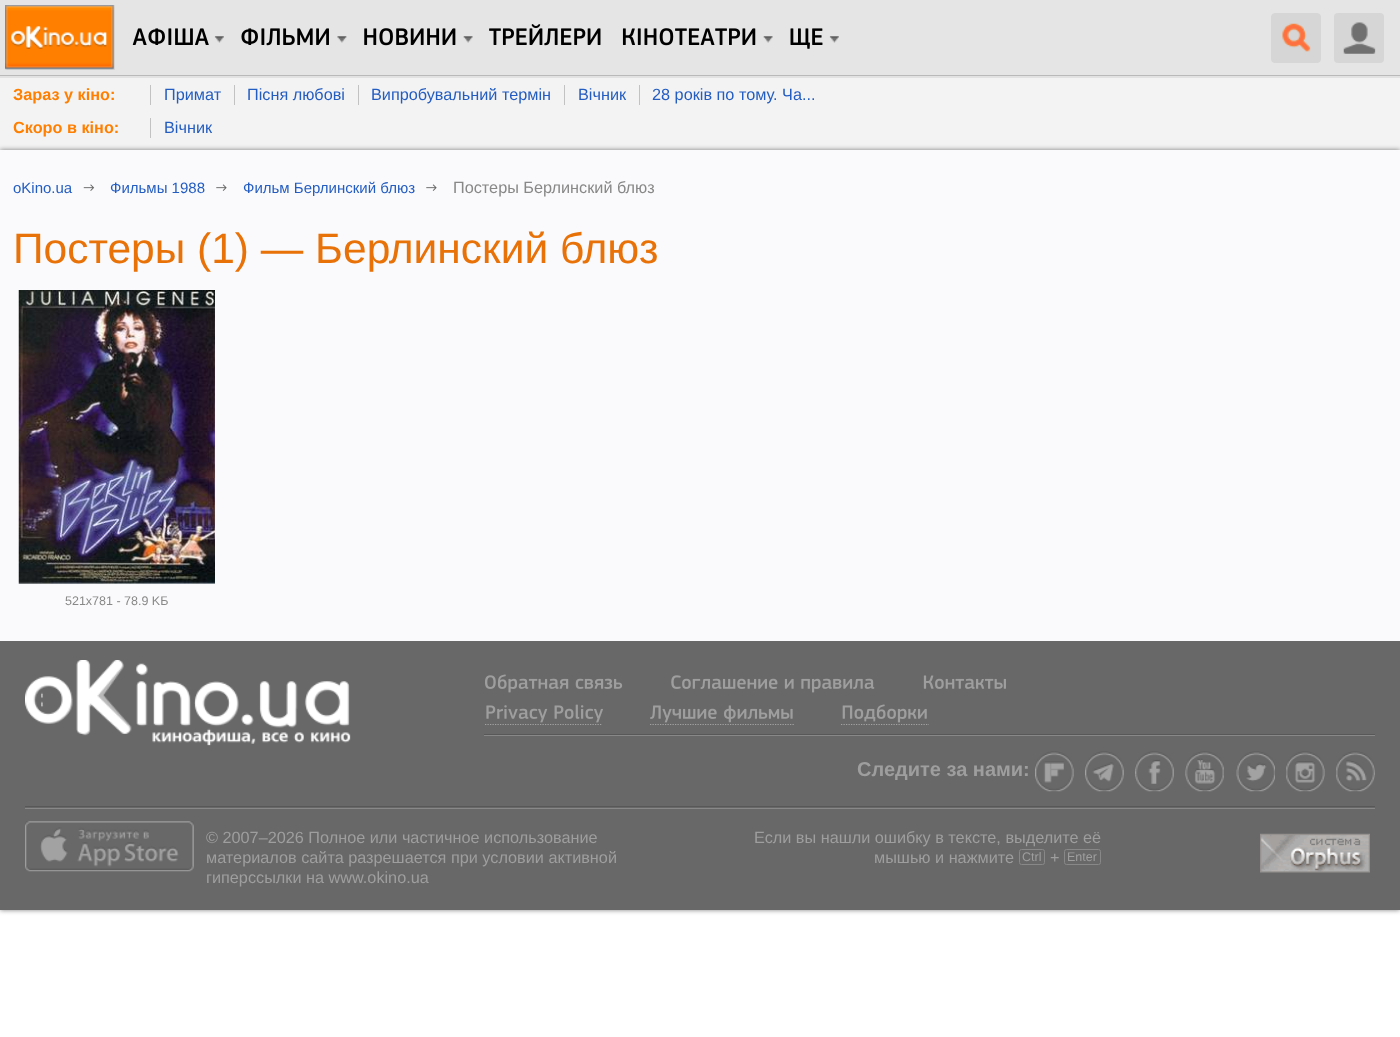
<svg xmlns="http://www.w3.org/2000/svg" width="1400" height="1037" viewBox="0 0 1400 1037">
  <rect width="100%" height="100%" fill="#fff"/>
  <path d="M0 76h1400v2H0z" fill="#e2e2e2"/>
  <path d="M0 75h1400v1H0z" fill="#b9b9b9"/>
  <path d="M0 0h1400v75H0z" fill="#e5e5e5"/>
  <image x="5" y="5" width="110" height="65" href="img/1.png"/>
  <image x="214" y="36" width="10" height="7" href="img/2.png"/>
  <image x="132" y="28" width="77" height="17" href="img/3.png"/>
  <image x="337" y="36" width="10" height="7" href="img/4.png"/>
  <image x="241" y="28" width="88" height="18" href="img/5.png"/>
  <image x="463" y="36" width="10" height="7" href="img/6.png"/>
  <image x="364" y="28" width="92" height="18" href="img/7.png"/>
  <image x="489" y="24" width="112" height="22" href="img/8.png"/>
  <image x="763" y="36" width="10" height="7" href="img/6.png"/>
  <image x="622" y="28" width="134" height="18" href="img/9.png"/>
  <image x="829" y="36" width="10" height="7" href="img/10.png"/>
  <image x="790" y="28" width="33" height="21" href="img/11.png"/>
  <rect x="1271.5" y="13.5" width="49" height="49" rx="3.5" fill="#d6d6d7" stroke="#d6d6d7"/>
  <image x="1282" y="23" width="29" height="29" href="img/12.png"/>
  <rect x="1334" y="13" width="50" height="50" rx="4" fill="#d6d6d7"/>
  <image x="1343" y="22" width="33" height="32" href="img/13.png"/>
  <path d="M0 78h1400v72H0z" fill="#f3f3f3"/>
  <path d="M150 85h1v20H150z" fill="#c2c2c2"/>
  <path d="M234 85h1v20H234z" fill="#c2c2c2"/>
  <path d="M358 85h1v20H358z" fill="#c2c2c2"/>
  <path d="M564 85h1v20H564z" fill="#c2c2c2"/>
  <path d="M639 85h1v20H639z" fill="#c2c2c2"/>
  <path d="M150 118h1v20H150z" fill="#c2c2c2"/>
  <path d="M0 150h1400v760H0z" fill="#00000080" filter="blur(2.5px)"/>
  <path d="M0 150h1400v491H0z" fill="#fafafc"/>
  <image x="83" y="184" width="12" height="7" href="img/14.png"/>
  <image x="216" y="184" width="11" height="7" href="img/15.png"/>
  <image x="426" y="184" width="11" height="7" href="img/15.png"/>
  <image x="18" y="290" width="197" height="294" href="img/16.png"/>
  <path d="M0 641h1400v269H0z" fill="#686868"/>
  <image x="25" y="660" width="326" height="86" href="img/17.png"/>
  <image x="485" y="674" width="138" height="19" href="img/18.png"/>
  <image x="671" y="675" width="204" height="18" href="img/19.png"/>
  <image x="923" y="675" width="83" height="14" href="img/20.png"/>
  <image x="486" y="704" width="117" height="19" href="img/21.png"/>
  <path d="M485 724.5H602.5" fill="none" stroke="#a2a2a2" stroke-width="1.2" stroke-dasharray="1.25 1.25"/>
  <image x="650" y="705" width="143" height="18" href="img/22.png"/>
  <path d="M650 724.5H794" fill="none" stroke="#a2a2a2" stroke-width="1.2" stroke-dasharray="1.25 1.25"/>
  <image x="842" y="704" width="85" height="19" href="img/23.png"/>
  <path d="M841 724.5H929" fill="none" stroke="#a2a2a2" stroke-width="1.2" stroke-dasharray="1.25 1.25"/>
  <path d="M484 734h891v1H484z" fill="#585858"/>
  <path d="M484 735h891v1H484z" fill="#888"/>
  <image x="1035" y="751" width="39" height="41" href="img/24.png"/>
  <image x="1085" y="751" width="39" height="41" href="img/25.png"/>
  <image x="1135" y="751" width="39" height="41" href="img/26.png"/>
  <image x="1185" y="751" width="39" height="41" href="img/27.png"/>
  <image x="1236" y="751" width="39" height="41" href="img/28.png"/>
  <image x="1286" y="751" width="39" height="41" href="img/29.png"/>
  <image x="1336" y="751" width="39" height="41" href="img/30.png"/>
  <path d="M25 806h1350v1H25z" fill="#585858"/>
  <path d="M25 808h1350v1H25z" fill="#888"/>
  <image x="25" y="821" width="169" height="51" href="img/31.png"/>
  <rect x="1019.5" y="849.5" width="25" height="15" rx="2" fill="none" stroke="#888"/>
  <rect x="1064.5" y="849.5" width="36" height="15" rx="2" fill="none" stroke="#888"/>
  <image x="1260" y="833" width="110" height="40" href="img/32.png"/>
  <text x="13" y="100" font-family="Liberation Sans" font-size="16.25" font-weight="bold" fill="#ff7f00">Зараз у кіно:</text>
  <g font-family="Liberation Sans" font-size="16.25" fill="#245dc1">
    <text x="164" y="100">Примат</text>
    <text x="247" y="100">Пісня любові</text>
    <text x="371" y="100">Випробувальний термін</text>
    <text x="578" y="100">Вічник</text>
    <text x="652" y="100">28 років по тому. Ча...</text>
  </g>
  <text x="13" y="133" font-family="Liberation Sans" font-size="16.25" font-weight="bold" fill="#ff7f00">Скоро в кіно:</text>
  <text x="164" y="133" font-family="Liberation Sans" font-size="16.25" fill="#245dc1">Вічник</text>
  <g font-family="Liberation Sans" font-size="15" fill="#245dc1">
    <text x="13" y="193">oKino.ua</text>
    <text x="110" y="193">Фильмы 1988</text>
    <text x="243" y="193">Фильм Берлинский блюз</text>
  </g>
  <text x="453" y="193" font-family="Liberation Sans" font-size="16.25" fill="#888">Постеры Берлинский блюз</text>
  <text x="13" y="263" font-family="Liberation Sans" font-size="42.5" fill="#e87208">Постеры (1) — Берлинский блюз</text>
  <text x="65" y="605" font-family="Liberation Sans" font-size="12.5" fill="#888">521x781 - 78.9 KБ</text>
  <text x="857" y="776" font-family="Liberation Sans" font-size="20" font-weight="bold" fill="#9e9e9e">Следите за нами:</text>
  <g font-family="Liberation Sans" font-size="16.25" fill="#9e9e9e">
    <text x="206" y="843">© 2007–2026 Полное или частичное использование</text>
    <text x="206" y="863">материалов сайта разрешается при условии активной</text>
    <text x="206" y="883">гиперссылки на www.okino.ua</text>
    <text x="754" y="843">Если вы нашли ошибку в тексте, выделите её</text>
    <text x="874" y="863">мышью и нажмите</text>
  </g>
  <text x="1022" y="861" font-family="Liberation Sans" font-size="12.5" fill="#9e9e9e">Ctrl</text>
  <text x="1050" y="863" font-family="Liberation Sans" font-size="16.25" fill="#9e9e9e">+</text>
  <text x="1067" y="861" font-family="Liberation Sans" font-size="12.5" fill="#9e9e9e">Enter</text>
</svg>
